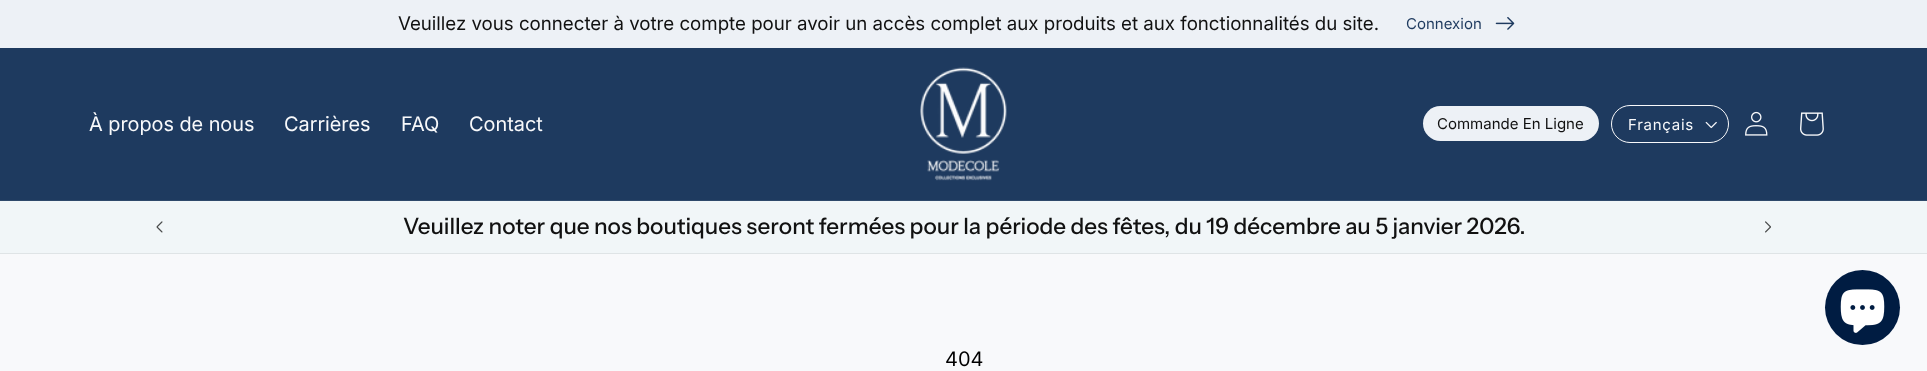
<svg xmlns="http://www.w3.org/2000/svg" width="1927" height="371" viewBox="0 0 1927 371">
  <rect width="100%" height="100%" fill="#f8f9fb"/>
  <path d="M0 0h1927v48H0z" fill="#edf1f6"/>
  <image x="1495" y="17" width="20" height="13" href="img/1.png"/>
  <path d="M0 48h1927v152H0z" fill="#1e3a5f"/>
  <path d="M0 200h1927v1H0z" fill="#2f496b"/>
  <image x="920" y="67" width="87" height="114" href="img/2.png"/>
  <rect x="1423" y="106" width="176" height="35" rx="17.5" fill="#edf1f6"/>
  <rect x="1611.5" y="105.5" width="117" height="37" rx="18.5" fill="none" stroke="#f8f9fb"/>
  <image x="1705" y="121" width="12" height="8" href="img/3.png"/>
  <image x="1745" y="111" width="23" height="25" href="img/4.png"/>
  <image x="1800" y="112" width="24" height="24" href="img/5.png"/>
  <path d="M0 201h1927v52H0z" fill="#f1f6f8"/>
  <path d="M0 253h1927v1H0z" fill="#dfe4e6"/>
  <image x="156" y="221" width="7" height="12" href="img/6.png"/>
  <image x="1765" y="221" width="6" height="12" href="img/7.png"/>
  <circle cx="1862.5" cy="307.5" r="37.5" fill="#001c42"/>
  <image x="1840" y="289" width="45" height="44" href="img/8.png"/>
  <text x="398" y="30" font-family="'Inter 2'" font-size="18.75" fill="#111">Veuillez vous connecter à votre compte pour avoir un accès complet aux produits et aux fonctionnalités du site.</text>
  <text x="1406" y="29" font-family="Inter" font-size="15" fill="#1e3a5f">Connexion</text>
  <g font-family="'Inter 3'" font-size="20" fill="#f8f9fb">
    <text x="89" y="131">À propos de nous</text>
    <text x="284" y="131">Carrières</text>
    <text x="401" y="131">FAQ</text>
    <text x="469" y="131">Contact</text>
  </g>
  <text x="1437" y="129" font-family="Inter" font-size="15" fill="#111">Commande En Ligne</text>
  <text x="1628" y="130" font-family="Inter" font-size="15" letter-spacing="0.75" fill="#f8f9fb">Français</text>
  <text x="403" y="234" font-family="Instrument Sans" font-size="22.5" font-weight="500" fill="#111">Veuillez noter que nos boutiques seront fermées pour la période des fêtes, du 19 décembre au 5 janvier 2026.</text>
  <text x="945" y="366" font-family="Inter" font-size="20" fill="#000">404</text>
</svg>
